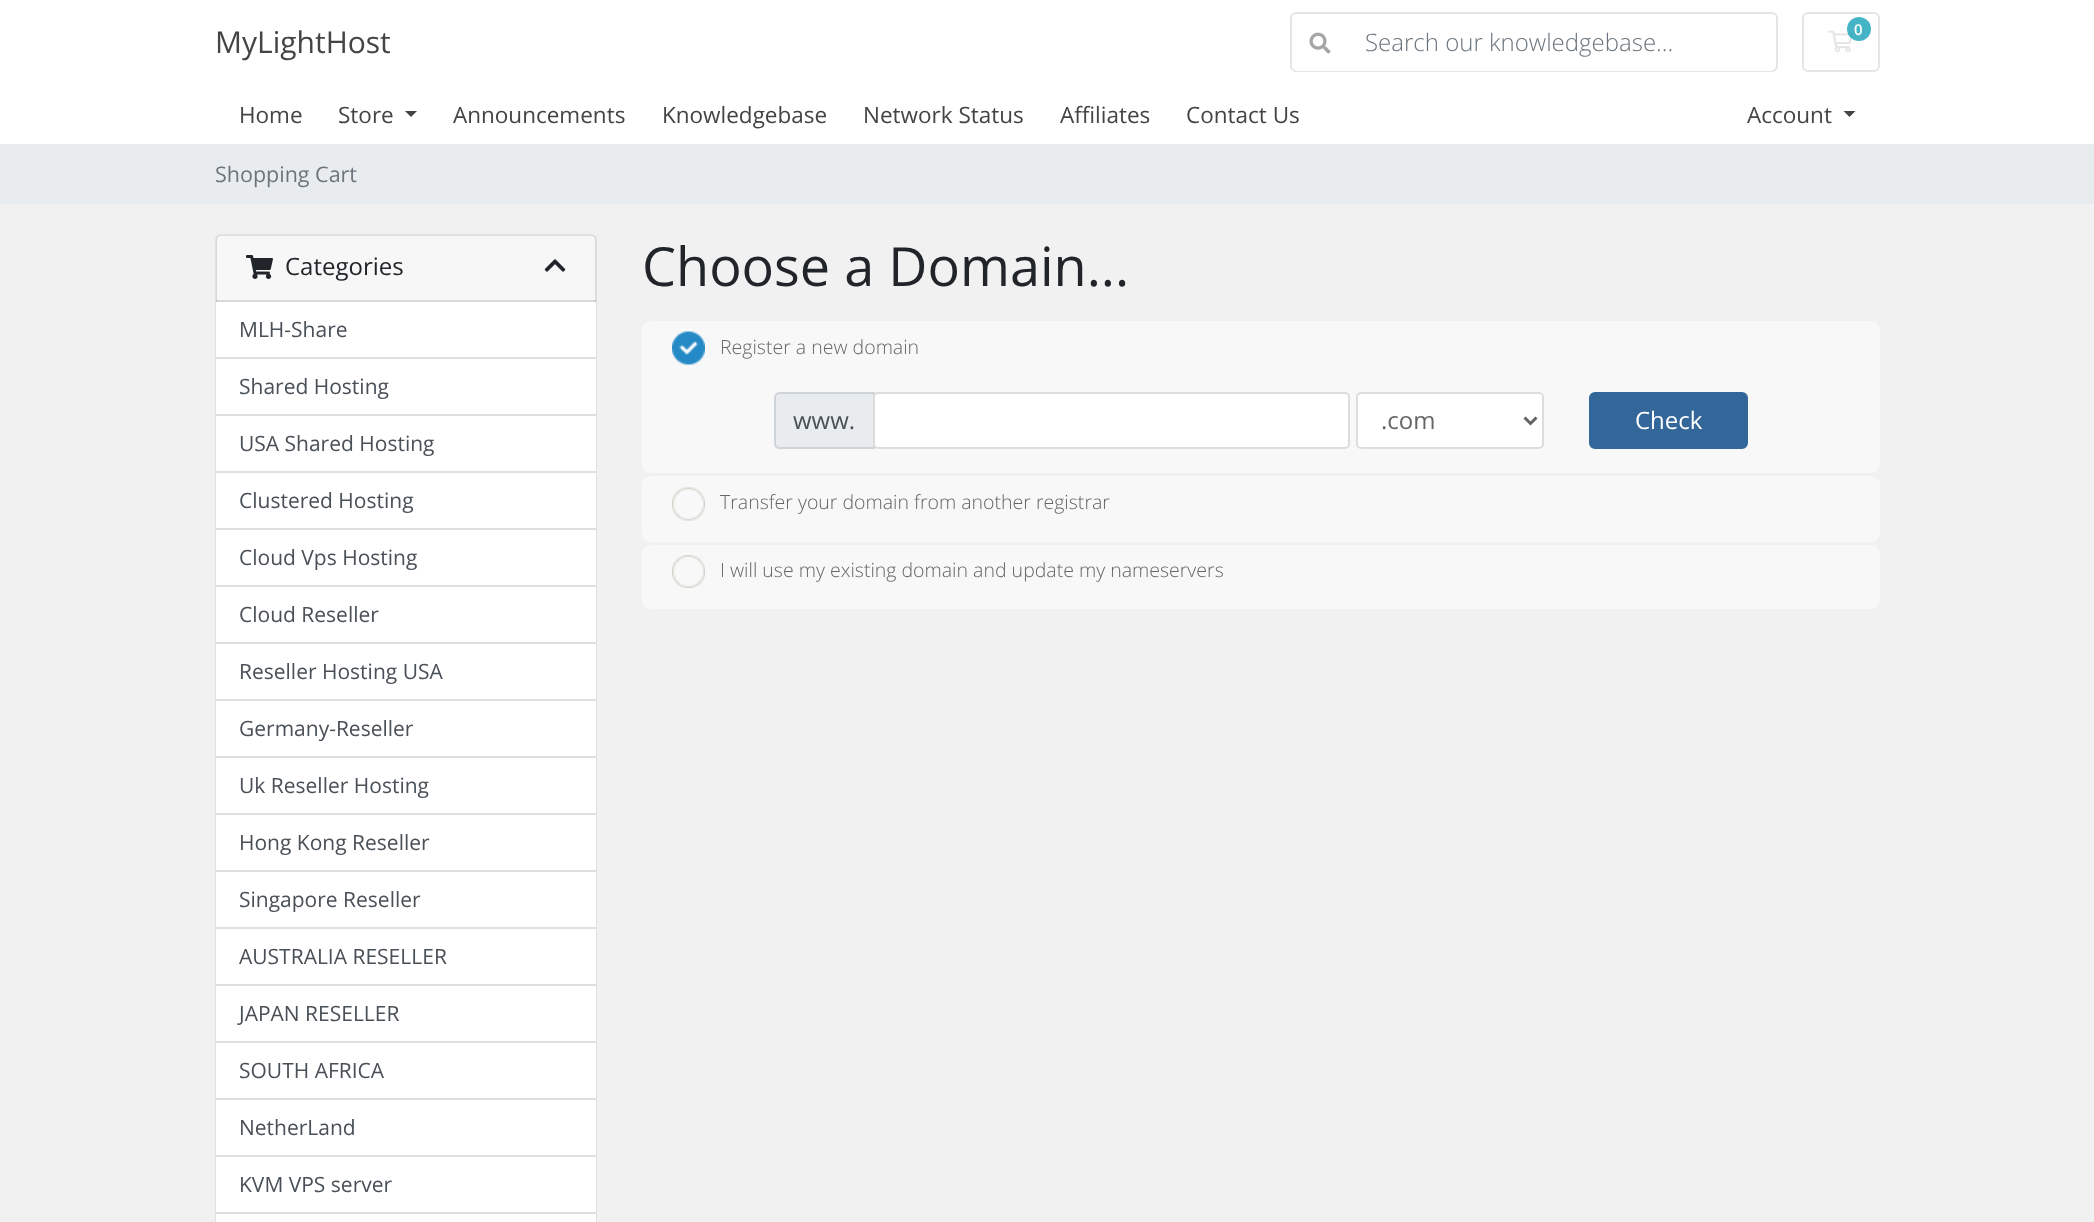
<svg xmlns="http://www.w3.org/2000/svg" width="2094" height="1222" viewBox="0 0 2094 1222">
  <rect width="100%" height="100%" fill="#f1f1f1"/>
  <path d="M0 0h2094v144H0z" fill="#fff"/>
  <rect x="1291" y="13" width="486" height="58" rx="5" fill="none" stroke="#e5e5e5" stroke-width="2"/>
  <path d="M1347 14H1770C1773.5 14 1776 16.5 1776 20V65C1776 68.5 1773.5 71 1770 71H1347Z" fill="#fff"/>
  <path d="M1298 14H1349V71H1298C1294.5 71 1292 68.5 1292 65V20C1292 16.5 1294.5 14 1298 14Z" fill="#fff"/>
  <image x="1309" y="32" width="22" height="22" href="img/1.png"/>
  <rect x="1803" y="13" width="76" height="58" rx="5" fill="none" stroke="#e5e5e5" stroke-width="2"/>
  <image x="1828" y="30" width="25" height="22" href="img/2.png"/>
  <circle cx="1859" cy="29" r="12" fill="#17a2b8cc"/>
  <path d="M405 111H417L411 117Z" fill="#444"/>
  <path d="M1843.5 111H1855.5L1849.5 117Z" fill="#444"/>
  <path d="M0 144h2094v60H0z" fill="#e9ecef"/>
  <rect x="215" y="234" width="382" height="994" rx="6" fill="#fff"/>
  <rect x="216" y="235" width="380" height="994" rx="5" fill="none" stroke="#0000001f" stroke-width="2"/>
  <path d="M216 236h380v66H216z" fill="#00000008"/>
  <path d="M216 300h380v2H216z" fill="#0000001f"/>
  <image x="246" y="255" width="27" height="24" href="img/3.png"/>
  <image x="544" y="259" width="22" height="13" href="img/4.png"/>
  <path d="M216 302h380v55H216z" fill="#fff"/>
  <path d="M216 357h380v2H216z" fill="#dfdfdf"/>
  <path d="M216 359h380v55H216z" fill="#fff"/>
  <path d="M216 414h380v2H216z" fill="#dfdfdf"/>
  <path d="M216 416h380v55H216z" fill="#fff"/>
  <path d="M216 471h380v2H216z" fill="#dfdfdf"/>
  <path d="M216 473h380v55H216z" fill="#fff"/>
  <path d="M216 528h380v2H216z" fill="#dfdfdf"/>
  <path d="M216 530h380v55H216z" fill="#fff"/>
  <path d="M216 585h380v2H216z" fill="#dfdfdf"/>
  <path d="M216 587h380v55H216z" fill="#fff"/>
  <path d="M216 642h380v2H216z" fill="#dfdfdf"/>
  <path d="M216 644h380v55H216z" fill="#fff"/>
  <path d="M216 699h380v2H216z" fill="#dfdfdf"/>
  <path d="M216 701h380v55H216z" fill="#fff"/>
  <path d="M216 756h380v2H216z" fill="#dfdfdf"/>
  <path d="M216 758h380v55H216z" fill="#fff"/>
  <path d="M216 813h380v2H216z" fill="#dfdfdf"/>
  <path d="M216 815h380v55H216z" fill="#fff"/>
  <path d="M216 870h380v2H216z" fill="#dfdfdf"/>
  <path d="M216 872h380v55H216z" fill="#fff"/>
  <path d="M216 927h380v2H216z" fill="#dfdfdf"/>
  <path d="M216 929h380v55H216z" fill="#fff"/>
  <path d="M216 984h380v2H216z" fill="#dfdfdf"/>
  <path d="M216 986h380v55H216z" fill="#fff"/>
  <path d="M216 1041h380v2H216z" fill="#dfdfdf"/>
  <path d="M216 1043h380v55H216z" fill="#fff"/>
  <path d="M216 1098h380v2H216z" fill="#dfdfdf"/>
  <path d="M216 1100h380v55H216z" fill="#fff"/>
  <path d="M216 1155h380v2H216z" fill="#dfdfdf"/>
  <path d="M216 1157h380v55H216z" fill="#fff"/>
  <path d="M216 1212h380v2H216z" fill="#dfdfdf"/>
  <path d="M216 1214h380v8H216z" fill="#fff"/>
  <rect x="642" y="321" width="1238" height="152" rx="9" fill="#f8f8f8"/>
  <image x="672" y="331" width="33" height="34" href="img/5.png"/>
  <path d="M780 393H874V448H780C777 448 775 446 775 443V398C775 395 777 393 780 393Z" fill="#e9ecef" stroke="#ced4da" stroke-width="2"/>
  <rect x="874" y="393" width="475" height="55" rx="4" fill="#fff" stroke="#ddd" stroke-width="2"/>
  <rect x="1357" y="393" width="186" height="55" rx="4" fill="#fff" stroke="#ddd" stroke-width="2"/>
  <path d="M1524.5 417.5L1530.5 423.5L1536.5 417.5" fill="none" stroke="#626262" stroke-width="3"/>
  <rect x="1590" y="393" width="157" height="55" rx="5" fill="#369" stroke="#369" stroke-width="2"/>
  <rect x="642" y="476" width="1238" height="66" rx="9" fill="#f8f8f8"/>
  <image x="672" y="487" width="33" height="34" href="img/6.png"/>
  <rect x="642" y="545" width="1238" height="64" rx="9" fill="#f8f8f8"/>
  <image x="672" y="555" width="33" height="33" href="img/7.png"/>
  <text x="215" y="53" font-family="Open Sans" font-size="30" fill="#444">MyLightHost</text>
  <text x="1365" y="51" font-family="Open Sans" font-size="24" font-weight="300" fill="#6c757d">Search our knowledgebase...</text>
  <text x="1854" y="35" font-family="Open Sans" font-size="15" font-weight="600" fill="#fff">0</text>
  <g font-family="Open Sans" font-size="22.5" fill="#444">
    <text x="239" y="123">Home</text>
    <text x="338" y="123">Store</text>
    <text x="453" y="123">Announcements</text>
    <text x="662" y="123">Knowledgebase</text>
    <text x="863" y="123">Network Status</text>
    <text x="1060" y="123">Affiliates</text>
    <text x="1186" y="123">Contact Us</text>
    <text x="1747" y="123">Account</text>
  </g>
  <text x="215" y="182" font-family="Open Sans" font-size="21.5" fill="#6c757d">Shopping Cart</text>
  <text x="285" y="275" font-family="Open Sans" font-size="24" fill="#212529">Categories</text>
  <g font-family="Open Sans" font-size="21" fill="#495057">
    <text x="239" y="337">MLH-Share</text>
    <text x="239" y="394">Shared Hosting</text>
    <text x="239" y="451">USA Shared Hosting</text>
    <text x="239" y="508">Clustered Hosting</text>
    <text x="239" y="565">Cloud Vps Hosting</text>
    <text x="239" y="622">Cloud Reseller</text>
    <text x="239" y="679">Reseller Hosting USA</text>
    <text x="239" y="736">Germany-Reseller</text>
    <text x="239" y="793">Uk Reseller Hosting</text>
    <text x="239" y="850">Hong Kong Reseller</text>
    <text x="239" y="907">Singapore Reseller</text>
    <text x="239" y="964">AUSTRALIA RESELLER</text>
    <text x="239" y="1021">JAPAN RESELLER</text>
    <text x="239" y="1078">SOUTH AFRICA</text>
    <text x="239" y="1135">NetherLand</text>
    <text x="239" y="1192">KVM VPS server</text>
  </g>
  <text x="642" y="286" font-family="Open Sans" font-size="54" fill="#212529">Choose a Domain...</text>
  <text x="720" y="354" font-family="Open Sans" font-size="19.5" font-weight="300" fill="#666">Register a new domain</text>
  <text x="793" y="429" font-family="Open Sans" font-size="24" fill="#495057">www.</text>
  <text x="1381" y="429" font-family="Open Sans" font-size="24" fill="#666">.com</text>
  <text x="1635" y="429" font-family="Open Sans" font-size="24" fill="#fff">Check</text>
  <g font-family="Open Sans" font-size="19.5" font-weight="300" fill="#666">
    <text x="720" y="509">Transfer your domain from another registrar</text>
    <text x="720" y="577">I will use my existing domain and update my nameservers</text>
  </g>
</svg>
